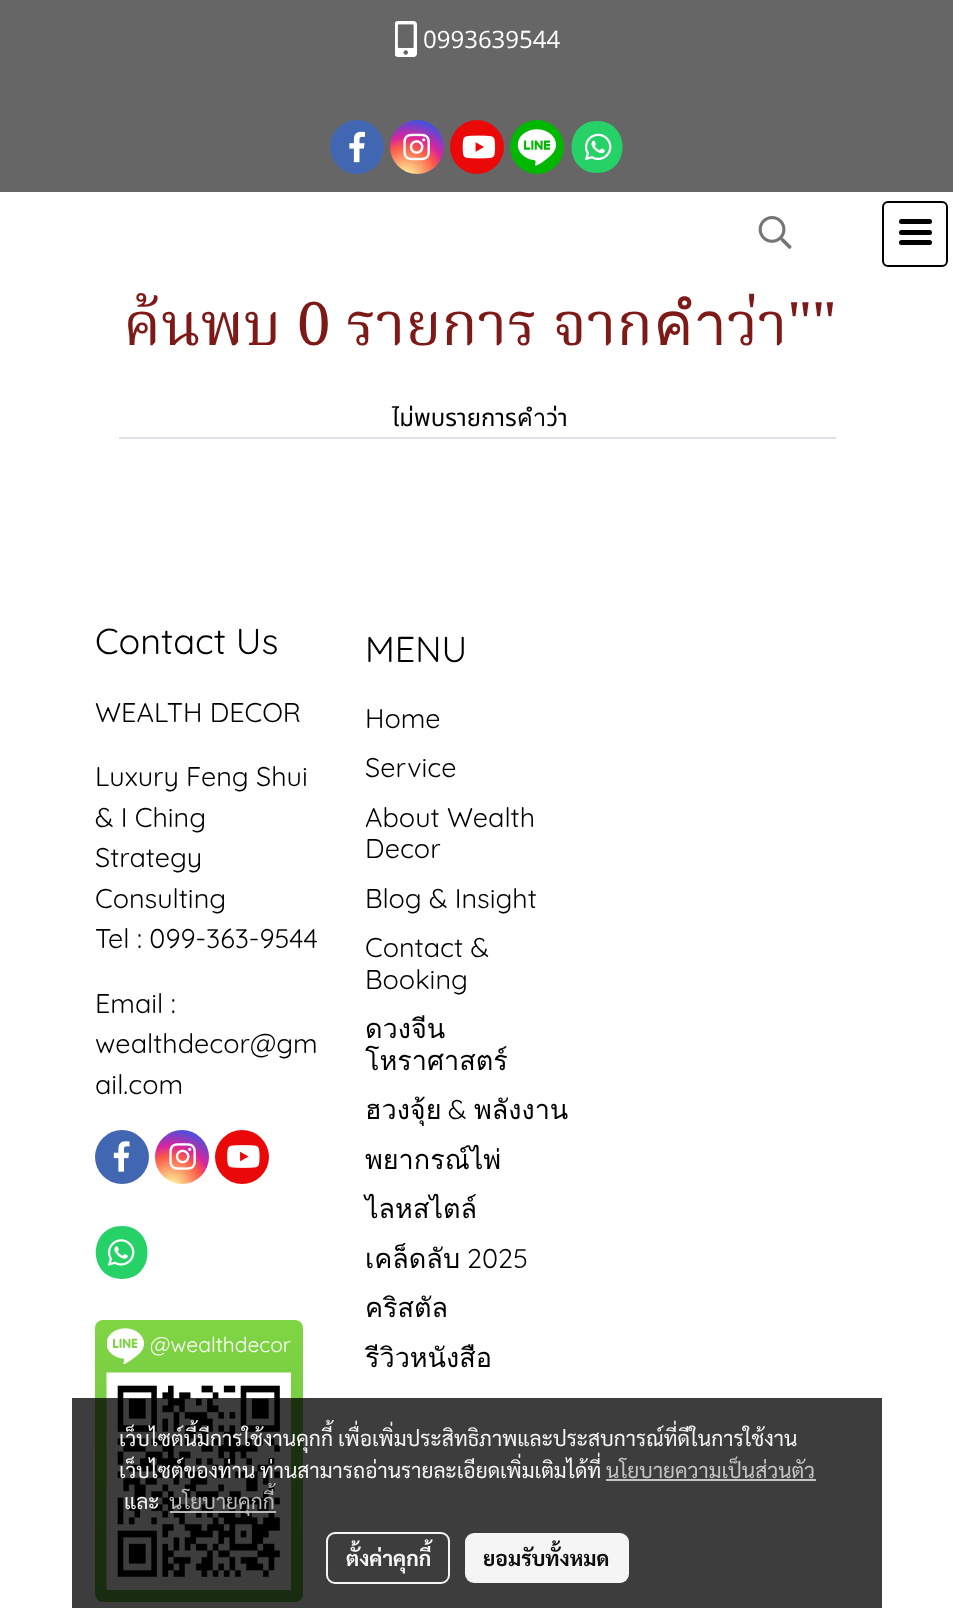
<svg xmlns="http://www.w3.org/2000/svg" width="953" height="1608" viewBox="0 0 953 1608">
  <defs>
    <radialGradient id="g1" gradientUnits="userSpaceOnUse" cx="406" cy="178" r="69"><stop offset="0" stop-color="#fdf497"/><stop offset="0.05" stop-color="#fdf497"/><stop offset="0.45" stop-color="#fd5949"/><stop offset="0.6" stop-color="#d6249f"/><stop offset="0.9" stop-color="#285aeb"/></radialGradient>
    <radialGradient id="g2" gradientUnits="userSpaceOnUse" cx="171" cy="1187" r="69"><stop offset="0" stop-color="#fdf497"/><stop offset="0.05" stop-color="#fdf497"/><stop offset="0.45" stop-color="#fd5949"/><stop offset="0.6" stop-color="#d6249f"/><stop offset="0.9" stop-color="#285aeb"/></radialGradient>
    <linearGradient id="g3" gradientUnits="userSpaceOnUse" x1="199" y1="1320" x2="199" y2="1602"><stop offset="0" stop-color="#80d544"/><stop offset="1" stop-color="#65bc3e"/></linearGradient>
  </defs>
  <rect width="100%" height="100%" fill="#fff"/>
  <path d="M0 0h953v192H0z" fill="#666"/>
  <image x="395" y="21" width="22" height="36" href="img/1.png"/>
  <circle cx="357" cy="147" r="27" fill="#4267b2"/>
  <image x="349" y="131" width="16" height="32" href="img/2.png"/>
  <circle cx="417" cy="147" r="27" fill="url(#g1)"/>
  <image x="403" y="133" width="27" height="28" href="img/3.png"/>
  <circle cx="477" cy="147" r="27" fill="#eb0808"/>
  <image x="462" y="135" width="34" height="24" href="img/4.png"/>
  <circle cx="537" cy="147" r="27" fill="#00b800"/>
  <image x="517" y="120" width="39" height="54" href="img/5.png"/>
  <path d="M597 121C563 121 563 173 597 173C631 173 631 121 597 121Z" fill="#26d267"/>
  <image x="584" y="133" width="28" height="28" href="img/6.png"/>
  <image x="758" y="216" width="34" height="33" href="img/7.png"/>
  <rect x="883" y="202" width="64" height="64" rx="5" fill="none" stroke="#000" stroke-width="2"/>
  <rect x="899" y="230" width="33" height="5" rx="2.5" fill="#000"/>
  <rect x="899" y="219" width="33" height="5" rx="2.5" fill="#000"/>
  <rect x="899" y="240" width="33" height="5" rx="2.5" fill="#000"/>
  <path d="M119 437h717v2H119z" fill="#dee2e6"/>
  <circle cx="122" cy="1157" r="27" fill="#4267b2"/>
  <image x="113" y="1141" width="17" height="31" href="img/8.png"/>
  <circle cx="182" cy="1157" r="27" fill="url(#g2)"/>
  <image x="169" y="1143" width="27" height="27" href="img/9.png"/>
  <circle cx="242" cy="1157" r="27" fill="#eb0808"/>
  <image x="227" y="1145" width="33" height="23" href="img/10.png"/>
  <path d="M122 1226C87 1226 87 1279 122 1279C156 1279 156 1226 122 1226Z" fill="#26d267"/>
  <image x="107" y="1239" width="28" height="27" href="img/11.png"/>
  <rect x="95" y="1320" width="208" height="282" rx="8" fill="url(#g3)"/>
  <image x="107" y="1328" width="37" height="37" href="img/12.png"/>
  <image x="106" y="1372" width="185" height="218" href="img/13.png"/>
  <path d="M72 1398h810v210H72z" fill="#000000c2"/>
  <path d="M606 1479h210v2H606z" fill="#c5c5c5"/>
  <path d="M170 1511h106v2H170z" fill="#c2c2c2f2"/>
  <rect x="327" y="1533" width="122" height="50" rx="8" fill="none" stroke="#fffffff2" stroke-width="2"/>
  <rect x="465" y="1533" width="164" height="50" rx="9" fill="#fffffff2"/>
  <text x="423" y="48" font-family="Open Sans" font-size="24" fill="#fff">0993639544</text>
  <text x="123" y="345" font-family="Noto Serif Thai" font-size="60" fill="#7d1a18">ค้นพบ 0 รายการ จากคำว่า""</text>
  <text x="392" y="426" font-family="Noto Sans Thai" font-size="24" fill="#000">ไม่พบรายการคำว่า</text>
  <text x="95" y="654" font-family="Quicksand" font-size="36" font-weight="300" fill="#000">Contact Us</text>
  <g font-family="Quicksand" font-size="27" font-weight="300" fill="#000">
    <text x="95" y="722">WEALTH DECOR</text>
    <text x="95" y="786">Luxury Feng Shui</text>
    <text x="95" y="827">&amp; I Ching</text>
    <text x="95" y="867">Strategy</text>
    <text x="95" y="908">Consulting</text>
    <text x="95" y="948">Tel : 099-363-9544</text>
    <text x="95" y="1013">Email :</text>
    <text x="95" y="1053">wealthdecor@gm</text>
    <text x="95" y="1094">ail.com</text>
  </g>
  <text x="150" y="1352" font-family="Quicksand" font-size="21" font-weight="300" fill="#fff">@wealthdecor</text>
  <text x="365" y="662" font-family="Quicksand" font-size="36" font-weight="300" fill="#000">MENU</text>
  <g font-family="Quicksand" font-size="27" font-weight="300" fill="#000">
    <text x="365" y="728">Home</text>
    <text x="365" y="777">Service</text>
    <text x="365" y="827">About Wealth</text>
    <text x="365" y="858">Decor</text>
    <text x="365" y="908">Blog &amp; Insight</text>
    <text x="365" y="957">Contact &amp;</text>
    <text x="365" y="989">Booking</text>
  </g>
  <g font-family="Loma" font-size="27" fill="#000">
    <text x="365" y="1038">ดวงจีน</text>
    <text x="365" y="1070">โหราศาสตร์</text>
    <text x="365" y="1119">ฮวงจุ้ย</text>
  </g>
  <text x="448" y="1119" font-family="Quicksand" font-size="27" font-weight="300" fill="#000">&amp;</text>
  <g font-family="Loma" font-size="27" fill="#000">
    <text x="474" y="1119">พลังงาน</text>
    <text x="365" y="1169">พยากรณ์ไพ่</text>
    <text x="365" y="1218">ไลหสไตล์</text>
    <text x="365" y="1268">เคล็ดลับ</text>
  </g>
  <text x="467" y="1268" font-family="Quicksand" font-size="27" font-weight="300" fill="#000">2025</text>
  <g font-family="Loma" font-size="27" fill="#000">
    <text x="365" y="1317">คริสตัล</text>
    <text x="365" y="1367">รีวิวหนังสือ</text>
  </g>
  <g font-family="Sarabun" font-size="21" fill="#f5f5f5">
    <text x="119" y="1446">เว็บไซต์นี้มีการใช้งานคุกกี้ เพื่อเพิ่มประสิทธิภาพและประสบการณ์ที่ดีในการใช้งาน</text>
    <text x="119" y="1478">เว็บไซต์ของท่าน</text>
    <text x="260" y="1478">ท่านสามารถอ่านรายละเอียดเพิ่มเติมได้ที่</text>
  </g>
  <text x="606" y="1478" font-family="Sarabun" font-size="21" fill="#c5c5c5">นโยบายความเป็นส่วนตัว</text>
  <text x="124" y="1509" font-family="Sarabun" font-size="21" fill="#f5f5f5">และ</text>
  <text x="169" y="1509" font-family="Sarabun" font-size="21" fill="#bababa">นโยบายคุกกี้</text>
  <text x="346" y="1566" font-family="Sarabun" font-size="21" font-weight="bold" fill="#f5f5f5">ตั้งค่าคุกกี้</text>
  <text x="483" y="1566" font-family="Sarabun" font-size="21" font-weight="bold" fill="#0d0d0d">ยอมรับทั้งหมด</text>
</svg>
